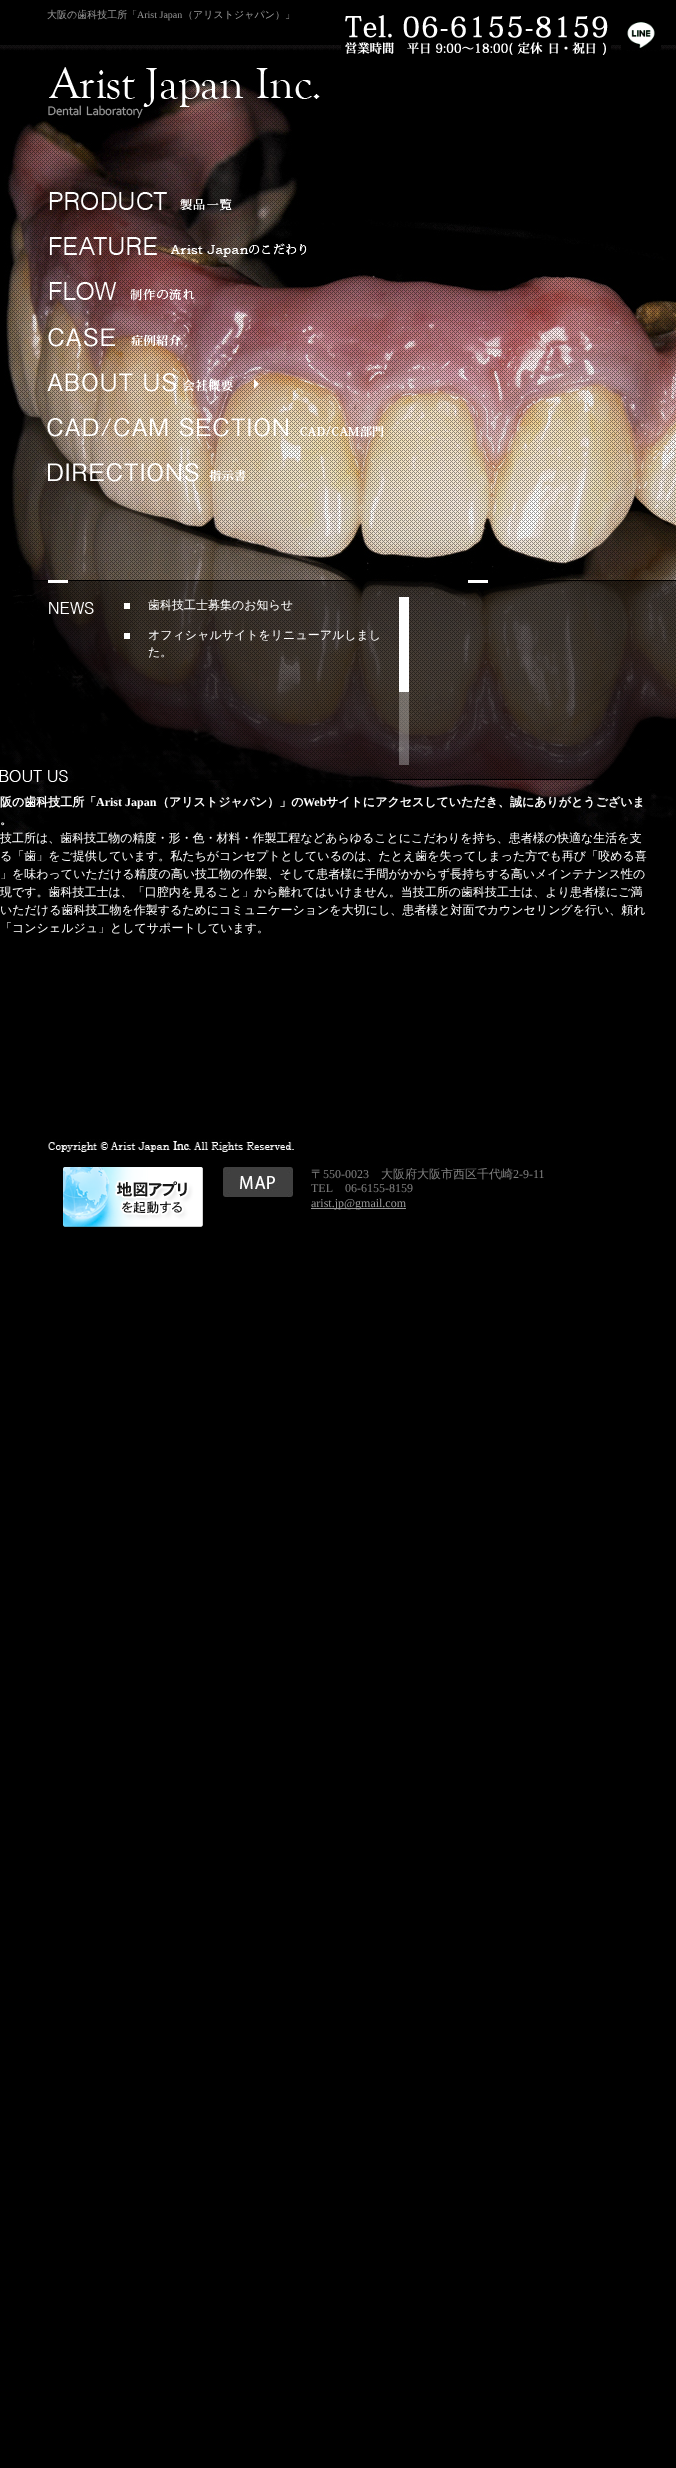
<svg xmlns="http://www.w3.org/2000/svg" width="676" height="2468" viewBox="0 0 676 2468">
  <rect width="100%" height="100%" fill="#000"/>
  <image x="0" y="45" width="676" height="800" href="img/17.png"/>
  <image x="341" y="15" width="270" height="40" href="img/1.png"/>
  <image x="621" y="22" width="40" height="28" href="img/2.png"/>
  <image x="48" y="67" width="272" height="52" href="img/3.png"/>
  <image x="49" y="192" width="183" height="19" href="img/4.png"/>
  <image x="49" y="237" width="258" height="20" href="img/5.png"/>
  <image x="49" y="282" width="146" height="19" href="img/6.png"/>
  <image x="48" y="328" width="133" height="19" href="img/7.png"/>
  <image x="47" y="373" width="186" height="19" href="img/8.png"/>
  <path d="M254 389V379L259 384Z" fill="#fff"/>
  <image x="47" y="418" width="337" height="20" href="img/9.png"/>
  <image x="48" y="463" width="198" height="19" href="img/10.png"/>
  <image x="3" y="580" width="673" height="200" href="img/11.png"/>
  <image x="49" y="602" width="45" height="12" href="img/12.png"/>
  <path d="M124 603h6v6H124z" fill="#fff"/>
  <path d="M124 633h6v6H124z" fill="#fff"/>
  <path d="M399 692h10v73H399z" fill="#ffffff4d"/>
  <path d="M399 597h10v95H399z" fill="#fff"/>
  <image x="0" y="770" width="68" height="12" href="img/13.png"/>
  <image x="48" y="1139" width="246" height="13" href="img/14.png"/>
  <image x="63" y="1167" width="140" height="60" href="img/15.png"/>
  <image x="223" y="1167" width="70" height="30" href="img/16.png"/>
  <path d="M311 1208h95v1H311z" fill="#999"/>
  <text x="47" y="18" font-family="WenQuanYi Zen Hei" font-size="10" font-weight="500" fill="#999">大阪の歯科技工所「</text>
  <text x="137" y="18" font-family="Liberation Serif" font-size="10" fill="#999">Arist Japan</text>
  <text x="183" y="18" font-family="WenQuanYi Zen Hei" font-size="10" font-weight="500" fill="#999">（アリストジャパン）」</text>
  <g font-family="WenQuanYi Zen Hei" font-size="12" font-weight="500" fill="#fff">
    <text x="148" y="609">歯科技工士募集のお知らせ</text>
    <text x="148" y="639">オフィシャルサイトをリニューアルしまし</text>
    <text x="148" y="656">た。</text>
  </g>
  <text x="0" y="806" font-family="WenQuanYi Zen Hei" font-size="12" font-weight="bold" fill="#fff">阪の歯科技工所「</text>
  <text x="96" y="806" font-family="Liberation Serif" font-size="12" font-weight="bold" fill="#fff">Arist Japan</text>
  <text x="157" y="806" font-family="WenQuanYi Zen Hei" font-size="12" font-weight="bold" fill="#fff">（アリストジャパン）」の</text>
  <text x="303" y="806" font-family="Liberation Serif" font-size="12" font-weight="bold" fill="#fff">Web</text>
  <g font-family="WenQuanYi Zen Hei" font-size="12" font-weight="bold" fill="#fff">
    <text x="326" y="806">サイトにアクセスしていただき、誠にありがとうございま</text>
    <text x="0" y="824">。</text>
  </g>
  <g font-family="WenQuanYi Zen Hei" font-size="12" font-weight="500" fill="#fff">
    <text x="0" y="842">技工所は、歯科技工物の精度・形・色・材料・作製工程などあらゆることにこだわりを持ち、患者様の快適な生活を支</text>
    <text x="0" y="860">る「歯」をご提供しています。私たちがコンセプトとしているのは、たとえ歯を失ってしまった方でも再び「咬める喜</text>
    <text x="0" y="878">」を味わっていただける精度の高い技工物の作製、そして患者様に手間がかからず長持ちする高いメインテナンス性の</text>
    <text x="0" y="896">現です。歯科技工士は、「口腔内を見ること」から離れてはいけません。当技工所の歯科技工士は、より患者様にご満</text>
    <text x="0" y="914">いただける歯科技工物を作製するためにコミュニケーションを大切にし、患者様と対面でカウンセリングを行い、頼れ</text>
    <text x="0" y="932">「コンシェルジュ」としてサポートしています。</text>
  </g>
  <text x="311" y="1178" font-family="WenQuanYi Zen Hei" font-size="12" font-weight="500" fill="#808080">〒</text>
  <text x="323" y="1178" font-family="Liberation Serif" font-size="12" fill="#808080">550-0023</text>
  <text x="381" y="1178" font-family="WenQuanYi Zen Hei" font-size="12" font-weight="500" fill="#808080">大阪府大阪市西区千代崎</text>
  <g font-family="Liberation Serif" font-size="12" fill="#808080">
    <text x="513" y="1178">2-9-11</text>
    <text x="311" y="1192">TEL</text>
    <text x="345" y="1192">06-6155-8159</text>
  </g>
  <text x="311" y="1207" font-family="Liberation Serif" font-size="12" fill="#999">arist.jp@gmail.com</text>
</svg>
